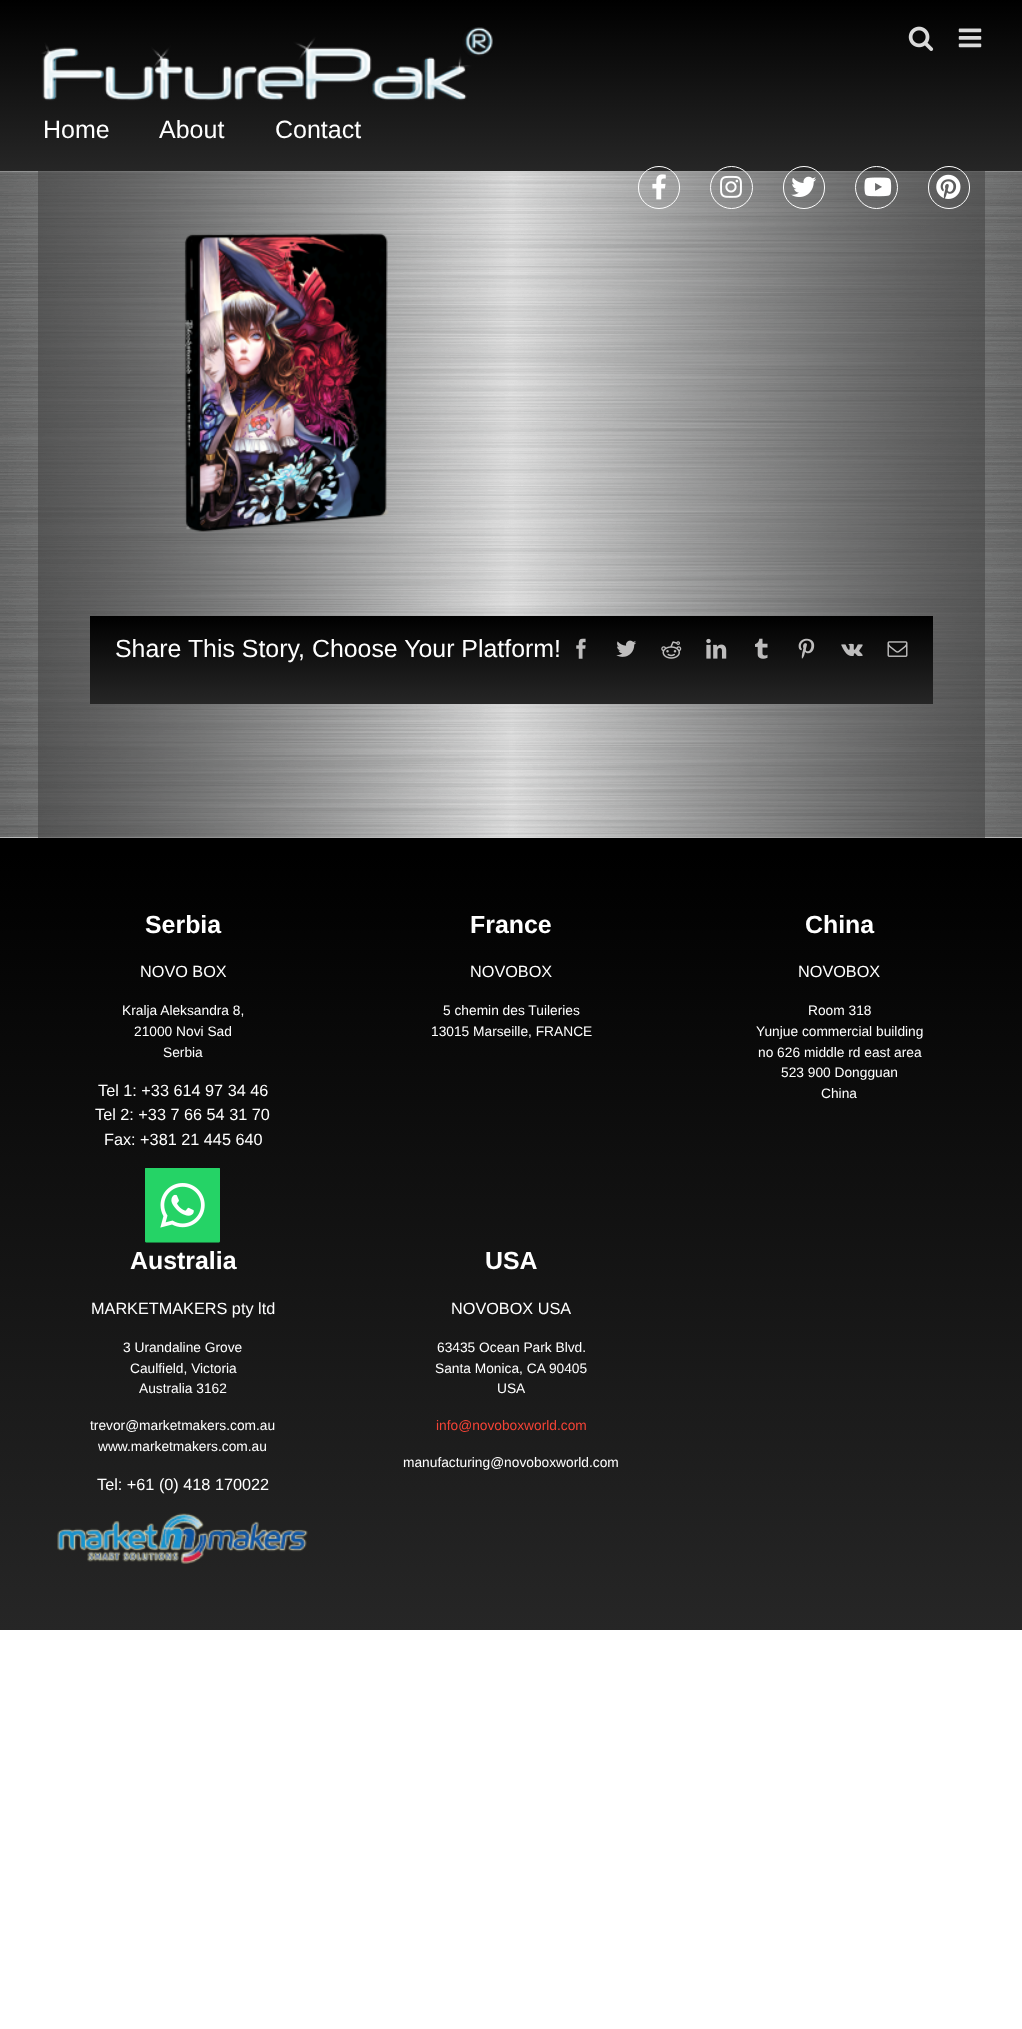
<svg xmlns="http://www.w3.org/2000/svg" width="1022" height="2029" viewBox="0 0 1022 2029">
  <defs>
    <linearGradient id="g1" gradientUnits="userSpaceOnUse" x1="511" y1="0" x2="511" y2="171"><stop offset="0" stop-color="#000"/><stop offset="1" stop-color="#262626"/></linearGradient>
    <linearGradient id="g2" gradientUnits="userSpaceOnUse" x1="38" y1="504" x2="985" y2="504"><stop offset="0" stop-color="#444" stop-opacity="0.6"/><stop offset="0.5" stop-color="#444" stop-opacity="0.1"/><stop offset="1" stop-color="#444" stop-opacity="0.6"/></linearGradient>
    <linearGradient id="g3" gradientUnits="userSpaceOnUse" x1="511" y1="616" x2="511" y2="704"><stop offset="0" stop-color="#000"/><stop offset="1" stop-color="#262626"/></linearGradient>
    <linearGradient id="g4" gradientUnits="userSpaceOnUse" x1="511" y1="853" x2="511" y2="1630"><stop offset="0" stop-color="#000"/><stop offset="1" stop-color="#262626"/></linearGradient>
  </defs>
  <rect width="100%" height="100%" fill="#fff"/>
  <path d="M0 0h1022v171H0z" fill="url(#g1)"/>
  <image x="908" y="26" width="26" height="25" href="img/1.png"/>
  <image x="958" y="28" width="24" height="20" href="img/2.png"/>
  <image x="41" y="27" width="452" height="74" href="img/3.png"/>
  <image x="0" y="171" width="1022" height="667" href="img/9.png"/>
  <path d="M38 171h947v667H38z" fill="url(#g2)"/>
  <rect x="638.5" y="166.5" width="41" height="42" rx="20.5" fill="none" stroke="#fff"/>
  <image x="652" y="174" width="14" height="26" href="img/4.png"/>
  <circle cx="731.5" cy="187.5" r="21" fill="none" stroke="#fff"/>
  <image x="720" y="175" width="22" height="23" href="img/5.png"/>
  <rect x="783.5" y="166.5" width="41" height="42" rx="20.5" fill="none" stroke="#fff"/>
  <image x="791" y="176" width="25" height="21" href="img/6.png"/>
  <circle cx="876.5" cy="187.5" r="21" fill="none" stroke="#fff"/>
  <image x="864" y="177" width="28" height="20" href="img/7.png"/>
  <rect x="928.5" y="166.5" width="41" height="42" rx="20.5" fill="none" stroke="#fff"/>
  <image x="936" y="174" width="25" height="25" href="img/8.png"/>
  <image x="184" y="233" width="205" height="299" href="img/10.png"/>
  <path d="M90 616h843v88H90z" fill="url(#g3)"/>
  <image x="576" y="638" width="10" height="21" href="img/11.png"/>
  <image x="616" y="640" width="21" height="17" href="img/12.png"/>
  <image x="661" y="641" width="21" height="18" href="img/13.png"/>
  <image x="706" y="638" width="21" height="21" href="img/14.png"/>
  <image x="755" y="638" width="13" height="21" href="img/15.png"/>
  <image x="798" y="638" width="17" height="21" href="img/16.png"/>
  <image x="841" y="643" width="22" height="14" href="img/17.png"/>
  <image x="887" y="641" width="21" height="16" href="img/18.png"/>
  <path d="M0 853h1022v777H0z" fill="url(#g4)"/>
  <path d="M0 838h1022v15H0z" fill="#000"/>
  <image x="145" y="1168" width="75" height="75" href="img/19.png"/>
  <image x="57" y="1513" width="251" height="51" href="img/20.png"/>
  <g font-family="Liberation Sans" font-size="25" fill="#fff">
    <text x="43" y="138">Home</text>
    <text x="159" y="138">About</text>
    <text x="275" y="138">Contact</text>
  </g>
  <text x="115" y="657" font-family="Liberation Sans" font-size="24.9" fill="#fff">Share This Story, Choose Your Platform!</text>
  <text x="145" y="933" font-family="Liberation Sans" font-size="24.9" font-weight="bold" fill="#fff">Serbia</text>
  <text x="140" y="977" font-family="Liberation Sans" font-size="16.25" fill="#fff">NOVO BOX</text>
  <g font-family="Liberation Sans" font-size="13.75" fill="#fff">
    <text x="122" y="1015">Kralja Aleksandra 8,</text>
    <text x="134" y="1036">21000 Novi Sad</text>
    <text x="163" y="1057">Serbia</text>
  </g>
  <g font-family="Liberation Sans" font-size="16.25" fill="#fff">
    <text x="98" y="1096">Tel 1: +33 614 97 34 46</text>
    <text x="95" y="1120">Tel 2: +33 7 66 54 31 70</text>
    <text x="104" y="1145">Fax: +381 21 445 640</text>
  </g>
  <text x="470" y="933" font-family="Liberation Sans" font-size="24.9" font-weight="bold" fill="#fff">France</text>
  <text x="470" y="977" font-family="Liberation Sans" font-size="16.25" fill="#fff">NOVOBOX</text>
  <g font-family="Liberation Sans" font-size="13.75" fill="#fff">
    <text x="443" y="1015">5 chemin des Tuileries</text>
    <text x="431" y="1036">13015 Marseille, FRANCE</text>
  </g>
  <text x="805" y="933" font-family="Liberation Sans" font-size="24.9" font-weight="bold" fill="#fff">China</text>
  <text x="798" y="977" font-family="Liberation Sans" font-size="16.25" fill="#fff">NOVOBOX</text>
  <g font-family="Liberation Sans" font-size="13.75" fill="#fff">
    <text x="808" y="1015">Room 318</text>
    <text x="756" y="1036">Yunjue commercial building</text>
    <text x="758" y="1057">no 626 middle rd east area</text>
    <text x="781" y="1077">523 900 Dongguan</text>
    <text x="821" y="1098">China</text>
  </g>
  <text x="130" y="1269" font-family="Liberation Sans" font-size="24.9" font-weight="bold" fill="#fff">Australia</text>
  <text x="91" y="1314" font-family="Liberation Sans" font-size="16.25" fill="#fff">MARKETMAKERS pty ltd</text>
  <g font-family="Liberation Sans" font-size="13.75" fill="#fff">
    <text x="123" y="1352">3 Urandaline Grove</text>
    <text x="130" y="1373">Caulfield, Victoria</text>
    <text x="139" y="1393">Australia 3162</text>
    <text x="90" y="1430">trevor@marketmakers.com.au</text>
    <text x="98" y="1451">www.marketmakers.com.au</text>
  </g>
  <text x="97" y="1490" font-family="Liberation Sans" font-size="16.25" fill="#fff">Tel: +61 (0) 418 170022</text>
  <text x="485" y="1269" font-family="Liberation Sans" font-size="24.9" font-weight="bold" fill="#fff">USA</text>
  <text x="451" y="1314" font-family="Liberation Sans" font-size="16.25" fill="#fff">NOVOBOX USA</text>
  <g font-family="Liberation Sans" font-size="13.75" fill="#fff">
    <text x="437" y="1352">63435 Ocean Park Blvd.</text>
    <text x="435" y="1373">Santa Monica, CA 90405</text>
    <text x="497" y="1393">USA</text>
  </g>
  <text x="436" y="1430" font-family="Liberation Sans" font-size="13.75" fill="#f44336">info@novoboxworld.com</text>
  <text x="403" y="1467" font-family="Liberation Sans" font-size="13.75" fill="#fff">manufacturing@novoboxworld.com</text>
</svg>
